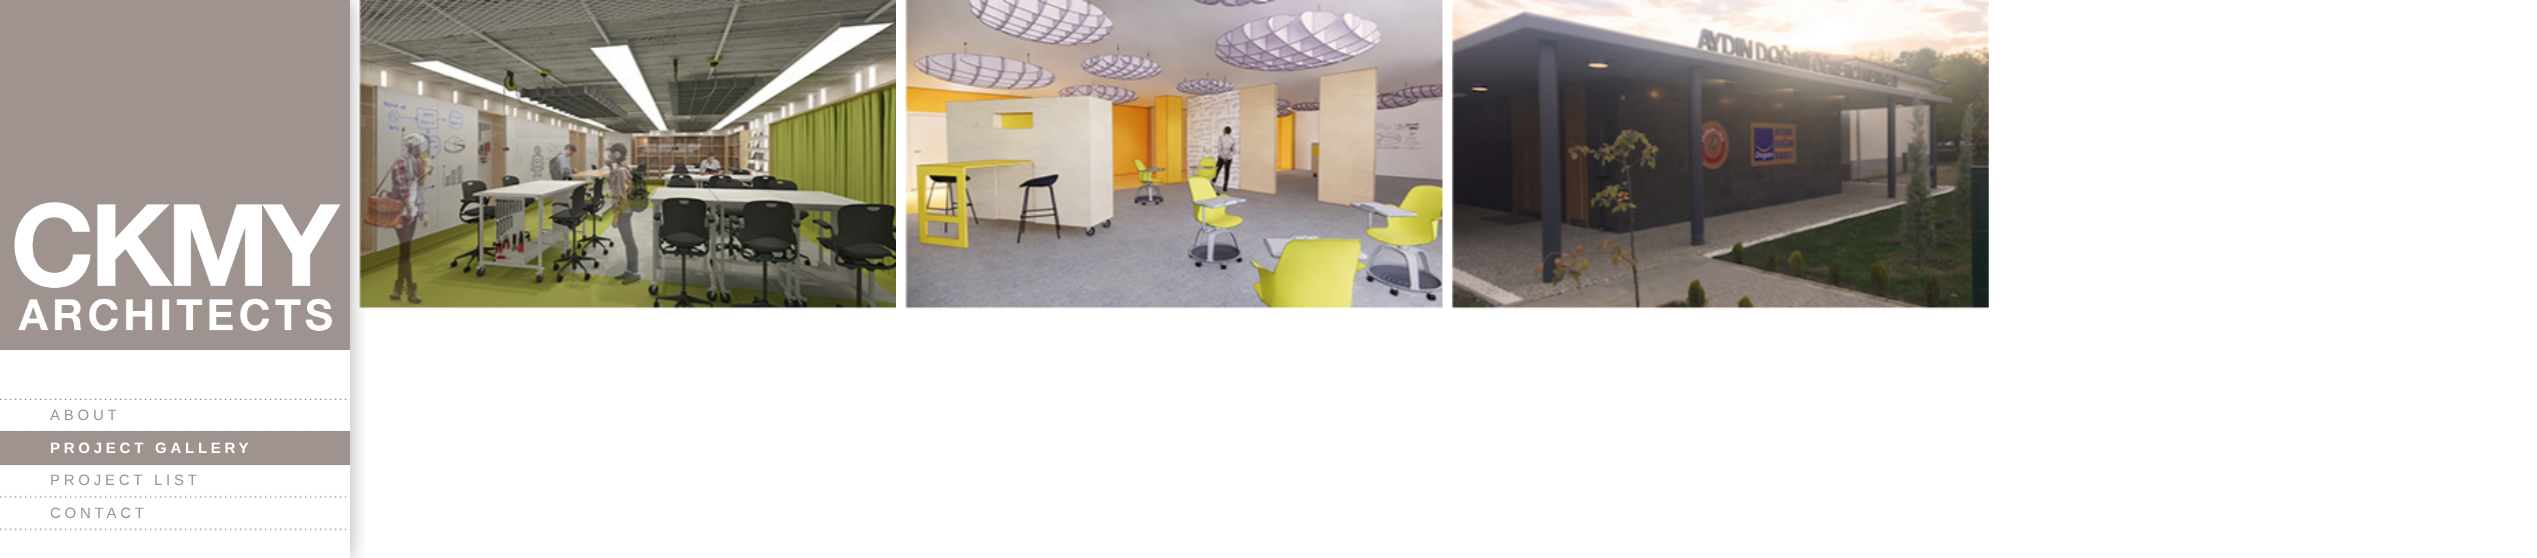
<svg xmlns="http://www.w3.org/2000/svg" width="2537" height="558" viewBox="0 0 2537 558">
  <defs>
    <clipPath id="clip1"><path d="M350 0h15v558H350z"/></clipPath>
  </defs>
  <rect width="100%" height="100%" fill="#fff"/>
  <image x="359" y="0" width="537" height="309" href="img/1.png"/>
  <image x="905" y="0" width="538" height="309" href="img/2.png"/>
  <image x="1451" y="0" width="538" height="309" href="img/3.png"/>
  <g clip-path="url(#clip1)">
    <path d="M0 0h350v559H0z" fill="#00000054" filter="blur(9.5px)"/>
  </g>
  <image x="0" y="0" width="350" height="350" href="img/4.png"/>
  <image x="0" y="398" width="350" height="2" href="img/5.png"/>
  <image x="0" y="430" width="347" height="1" href="img/6.png"/>
  <image x="0" y="465" width="347" height="1" href="img/7.png"/>
  <path d="M0 431h350v34H0z" fill="#9f9390"/>
  <image x="0" y="495" width="350" height="3" href="img/8.png"/>
  <image x="0" y="528" width="350" height="3" href="img/9.png"/>
  <text x="50" y="420" font-family="Liberation Sans" font-size="15" letter-spacing="3.75" fill="#9f9390">ABOUT</text>
  <text x="50" y="453" font-family="Liberation Sans" font-size="15" font-weight="bold" letter-spacing="3.75" fill="#fff">PROJECT GALLERY</text>
  <g font-family="Liberation Sans" font-size="15" letter-spacing="3.75" fill="#9f9390">
    <text x="50" y="485">PROJECT LIST</text>
    <text x="50" y="518">CONTACT</text>
  </g>
</svg>
